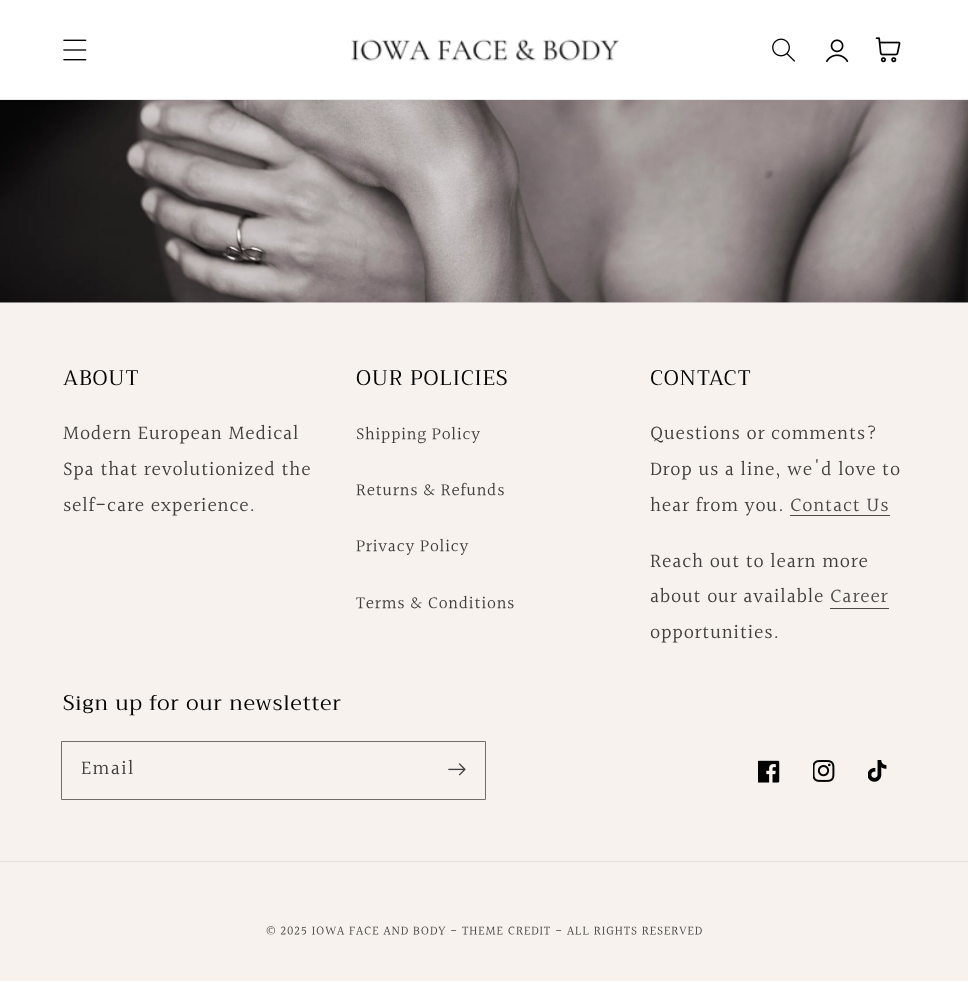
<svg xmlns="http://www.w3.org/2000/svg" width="968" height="997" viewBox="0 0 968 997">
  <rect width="100%" height="100%" fill="#fff"/>
  <path d="M0 99h968v1H0z" fill="#ebebeb"/>
  <image x="63" y="39" width="24" height="22" href="img/1.png"/>
  <image x="351" y="39" width="268" height="22" href="img/2.png"/>
  <image x="772" y="38" width="23" height="24" href="img/3.png"/>
  <image x="826" y="39" width="23" height="24" href="img/4.png"/>
  <image x="875" y="37" width="26" height="26" href="img/5.png"/>
  <image x="0" y="100" width="968" height="203" href="img/6.png"/>
  <path d="M0 303h968v678H0z" fill="#f7f2ee"/>
  <path d="M790 515h100v1H790z" fill="#4c4b4a"/>
  <path d="M830 608h59v1H830z" fill="#4c4b4a"/>
  <path d="M61.5 741.5h424v58H61.5z" fill="none" stroke="#716f6d"/>
  <image x="448" y="763" width="18" height="13" href="img/7.png"/>
  <image x="758" y="760" width="22" height="23" href="img/8.png"/>
  <image x="813" y="760" width="22" height="22" href="img/9.png"/>
  <image x="868" y="760" width="19" height="22" href="img/10.png"/>
  <path d="M0 861h968v1H0z" fill="#e3dfdb"/>
  <text x="63" y="385" font-family="Trirong" font-size="21" letter-spacing="0.8" fill="#030303">ABOUT</text>
  <g font-family="Halant" font-size="20" letter-spacing="0.75" fill="#403f3e">
    <text x="63" y="440">Modern European Medical</text>
    <text x="63" y="476">Spa that revolutionized the</text>
    <text x="63" y="512">self-care experience.</text>
  </g>
  <text x="356" y="385" font-family="Trirong" font-size="21" letter-spacing="0.8" fill="#030303">OUR POLICIES</text>
  <g font-family="Halant" font-size="17.5" letter-spacing="0.75" fill="#403f3e">
    <text x="356" y="440">Shipping Policy</text>
    <text x="356" y="496">Returns &amp; Refunds</text>
    <text x="356" y="552">Privacy Policy</text>
    <text x="356" y="609">Terms &amp; Conditions</text>
  </g>
  <text x="650" y="385" font-family="Trirong" font-size="21" letter-spacing="0.8" fill="#030303">CONTACT</text>
  <g font-family="Halant" font-size="20" letter-spacing="0.75" fill="#403f3e">
    <text x="650" y="440">Questions or comments?</text>
    <text x="650" y="476">Drop us a line, we'd love to</text>
    <text x="650" y="512">hear from you.</text>
  </g>
  <text x="790" y="512" font-family="Halant" font-size="20" letter-spacing="0.75" fill="#4c4b4a">Contact Us</text>
  <g font-family="Halant" font-size="20" letter-spacing="0.75" fill="#403f3e">
    <text x="650" y="568">Reach out to learn more</text>
    <text x="650" y="603">about our available</text>
  </g>
  <text x="830" y="603" font-family="Halant" font-size="20" letter-spacing="0.75" fill="#4c4b4a">Career</text>
  <text x="650" y="639" font-family="Halant" font-size="20" letter-spacing="0.75" fill="#403f3e">opportunities.</text>
  <text x="63" y="710" font-family="Trirong" font-size="21" letter-spacing="0.8" fill="#030303">Sign up for our newsletter</text>
  <text x="81" y="775" font-family="Halant" font-size="20" letter-spacing="1.25" fill="#403f3e">Email</text>
  <text x="266" y="935" font-family="Halant" font-size="12.5" letter-spacing="0.88" fill="#403f3e">© 2025 IOWA FACE AND BODY - THEME CREDIT - ALL RIGHTS RESERVED</text>
</svg>
